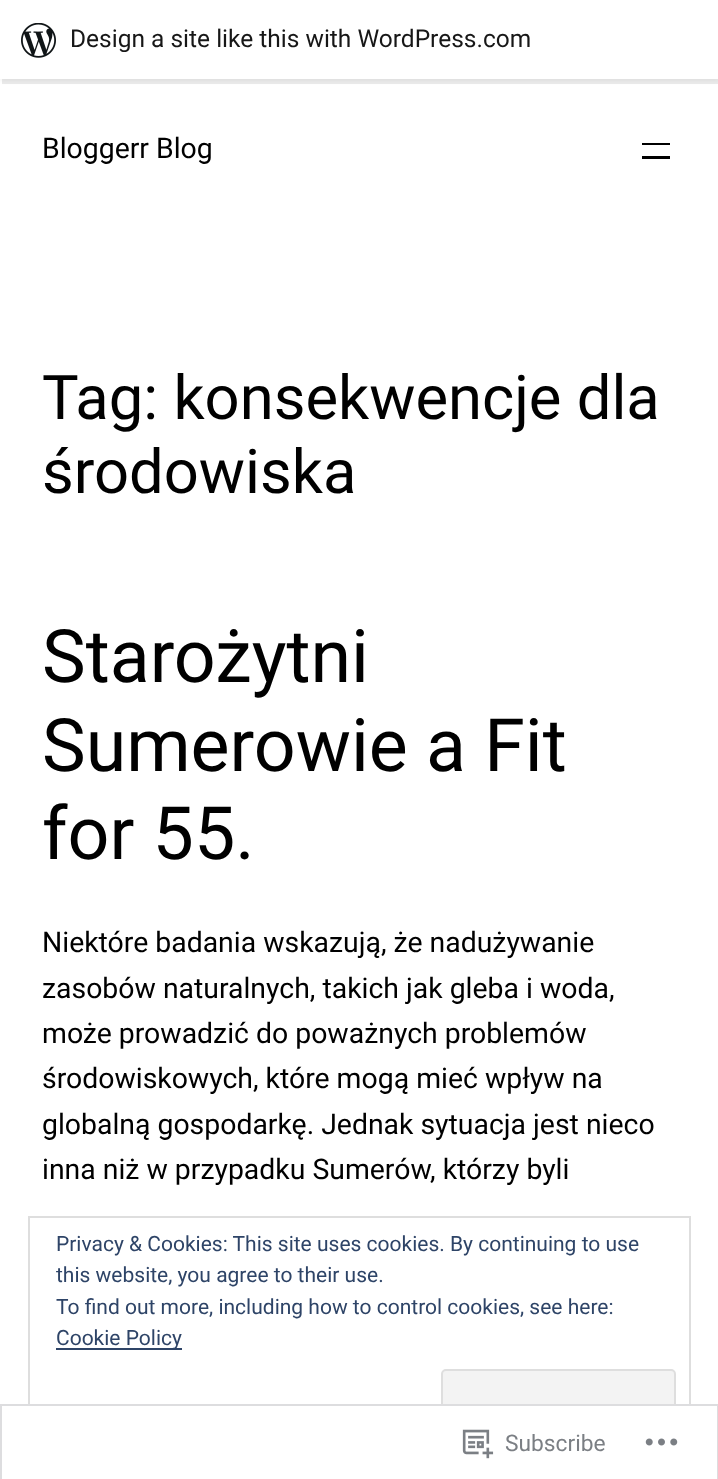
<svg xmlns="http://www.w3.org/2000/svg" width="718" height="1479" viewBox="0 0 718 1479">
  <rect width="100%" height="100%" fill="#fff"/>
  <path d="M0 2h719v79H0z" fill="#0000000d" filter="blur(2px)"/>
  <path d="M2 79V84H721V5H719V79Z" fill="#00000014"/>
  <path d="M0 0h718v79H0z" fill="#fff"/>
  <image x="21" y="23" width="35" height="35" href="img/1.png"/>
  <path d="M642 143h28v2H642z" fill="#000"/>
  <path d="M642 156h28v3H642z" fill="#000"/>
  <path d="M29 1217h661v235H29z" fill="none" stroke="#dedede" stroke-width="2"/>
  <path d="M56 1348h126v2H56z" fill="#2e4467"/>
  <rect x="442" y="1370" width="233" height="66" rx="4" fill="#f3f3f3" stroke="#dedede" stroke-width="2"/>
  <path d="M28 1404h663v49H28z" fill="#fffffffa"/>
  <path d="M1 1405h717v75H1z" fill="none" stroke="#dcdcdefa" stroke-width="2"/>
  <image x="462" y="1429" width="32" height="30" href="img/2.png"/>
  <image x="645" y="1438" width="33" height="8" href="img/3.png"/>
  <text x="70" y="47" font-family="Roboto" font-size="24.5" fill="#171717">Design a site like this with WordPress.com</text>
  <text x="42" y="158" font-family="Roboto" font-size="28.4" fill="#000">Bloggerr Blog</text>
  <g font-family="Roboto" font-size="61.5" fill="#000">
    <text x="42" y="419">Tag: konsekwencje dla</text>
    <text x="42" y="493">środowiska</text>
  </g>
  <g font-family="Roboto" font-size="73.5" fill="#000">
    <text x="42" y="682">Starożytni</text>
    <text x="42" y="771">Sumerowie a Fit</text>
    <text x="42" y="859">for 55.</text>
  </g>
  <g font-family="Roboto" font-size="28.4" fill="#000">
    <text x="42" y="952">Niektóre badania wskazują, że nadużywanie</text>
    <text x="42" y="998">zasobów naturalnych, takich jak gleba i woda,</text>
    <text x="42" y="1043">może prowadzić do poważnych problemów</text>
    <text x="42" y="1088">środowiskowych, które mogą mieć wpływ na</text>
    <text x="42" y="1134">globalną gospodarkę. Jednak sytuacja jest nieco</text>
    <text x="42" y="1179">inna niż w przypadku Sumerów, którzy byli</text>
  </g>
  <g font-family="Roboto" font-size="21" fill="#2e4467">
    <text x="56" y="1251">Privacy &amp; Cookies: This site uses cookies. By continuing to use</text>
    <text x="56" y="1282">this website, you agree to their use.</text>
    <text x="56" y="1314">To find out more, including how to control cookies, see here:</text>
    <text x="56" y="1345">Cookie Policy</text>
  </g>
  <text x="505" y="1451" font-family="Roboto" font-size="22.75" fill="#7b7f84">Subscribe</text>
</svg>
